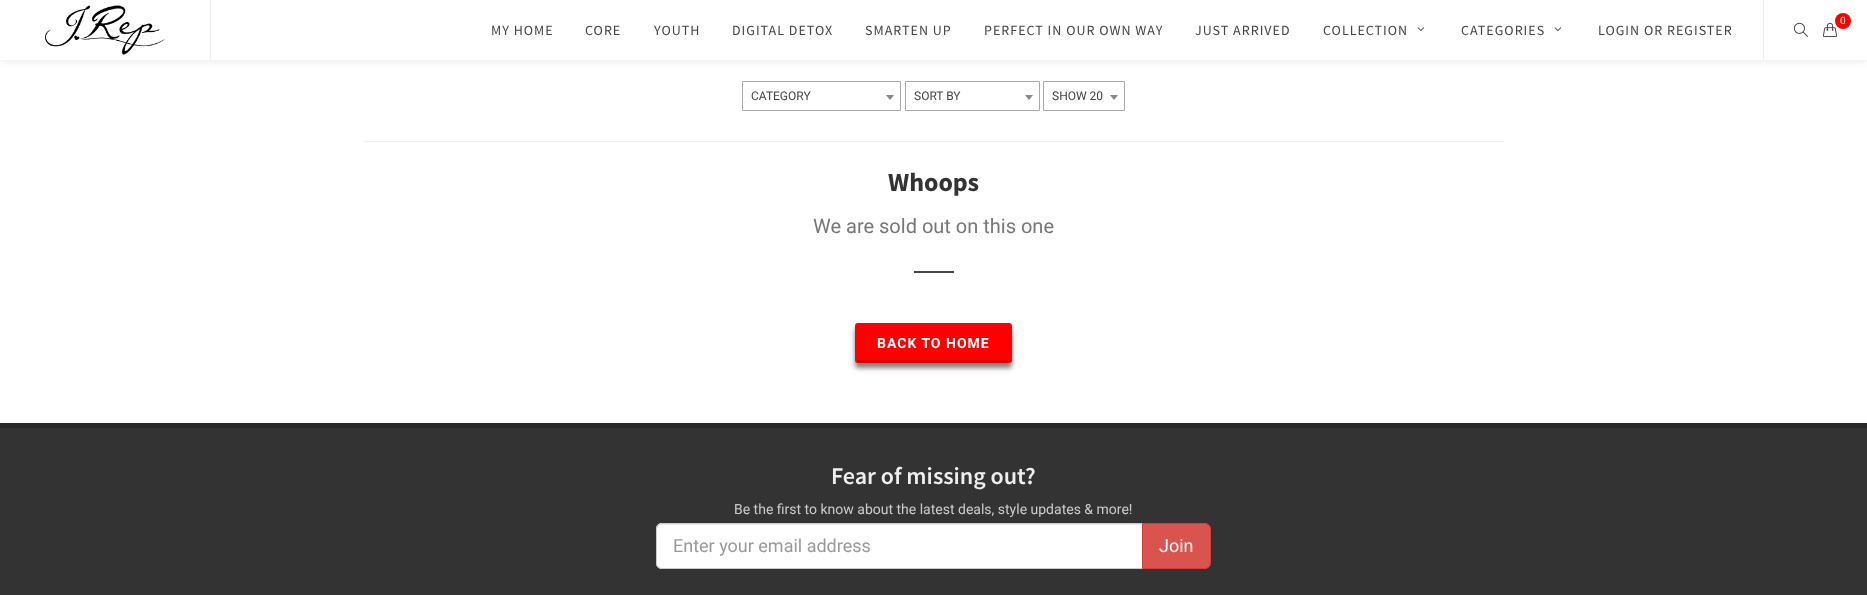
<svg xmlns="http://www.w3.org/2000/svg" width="1867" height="595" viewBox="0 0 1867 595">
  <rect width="100%" height="100%" fill="#fff"/>
  <path d="M0 0h1867v60H0z" fill="#0000001a" filter="blur(5px)"/>
  <path d="M0 0h1867v60H0z" fill="#fff"/>
  <path d="M210 0h1v60H210z" fill="#eee"/>
  <image x="45" y="5" width="120" height="50" href="img/1.png"/>
  <image x="1823" y="22" width="14" height="15" href="img/2.png"/>
  <circle cx="1843" cy="21" r="8" fill="#f00"/>
  <path d="M1763 0h1v60H1763z" fill="#eee"/>
  <image x="1417" y="27" width="8" height="5" href="img/3.png"/>
  <image x="1554" y="27" width="8" height="5" href="img/3.png"/>
  <image x="1793" y="22" width="15" height="15" href="img/4.png"/>
  <path d="M742.5 81.5h158v29H742.5z" fill="none" stroke="#aaa"/>
  <path d="M886 95H894L890 100Z" fill="#888"/>
  <path d="M905.5 81.5h134v29H905.5z" fill="none" stroke="#aaa"/>
  <path d="M1025 95H1033L1029 100Z" fill="#888"/>
  <path d="M1043.5 81.5h81v29H1043.5z" fill="none" stroke="#aaa"/>
  <path d="M1110 95H1118L1114 100Z" fill="#888"/>
  <path d="M364 141h1140v1H364z" fill="#eee"/>
  <path d="M914 271h40v2H914z" fill="#444"/>
  <rect x="855" y="328" width="157" height="40" rx="3" fill="#00000080" filter="blur(2.5px)"/>
  <rect x="855" y="323" width="157" height="40" rx="3" fill="#f00"/>
  <path d="M857 360h154v3H857z" fill="#00000026"/>
  <path d="M0 428h1867v167H0z" fill="#333"/>
  <path d="M0 423h1867v5H0z" fill="#292929"/>
  <path d="M662 523H1143V569H662C658.5 569 656 566.5 656 563V529C656 525.5 658.5 523 662 523Z" fill="#fff"/>
  <path d="M662 525H1142V524H662C659 524 657 526 657 529V530C657 527 659 525 662 525Z" fill="#ececec"/>
  <path d="M662 523.5H1142.5V568.5H662C659 568.5 656.5 566 656.5 563V529C656.5 526 659 523.5 662 523.5Z" fill="none" stroke="#ccc"/>
  <path d="M1142.5 523.5H1205C1208 523.5 1210.5 526 1210.5 529V563C1210.5 566 1208 568.5 1205 568.5H1142.5Z" fill="#d9534f" stroke="#d43f3a"/>
  <text x="1840" y="24" font-family="Roboto" font-size="10" fill="#fff">0</text>
  <g font-family="Source Sans Pro" font-size="14" letter-spacing="1" fill="#444">
    <text x="491" y="35">MY HOME</text>
    <text x="585" y="35">CORE</text>
    <text x="654" y="35">YOUTH</text>
    <text x="732" y="35">DIGITAL DETOX</text>
    <text x="865" y="35">SMARTEN UP</text>
    <text x="984" y="35">PERFECT IN OUR OWN WAY</text>
    <text x="1195" y="35">JUST ARRIVED</text>
    <text x="1323" y="35">COLLECTION</text>
    <text x="1461" y="35">CATEGORIES</text>
    <text x="1598" y="35">LOGIN OR REGISTER</text>
  </g>
  <g font-family="Roboto" font-size="12" fill="#444">
    <text x="751" y="100">CATEGORY</text>
    <text x="914" y="100">SORT BY</text>
    <text x="1052" y="100">SHOW 20</text>
  </g>
  <text x="888" y="191" font-family="Source Sans Pro" font-size="26" font-weight="bold" fill="#333">Whoops</text>
  <text x="813" y="233" font-family="Roboto" font-size="20" fill="#777">We are sold out on this one</text>
  <text x="877" y="348" font-family="Roboto" font-size="14" font-weight="bold" letter-spacing="1" fill="#fff">BACK TO HOME</text>
  <text x="831" y="484" font-family="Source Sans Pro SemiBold" font-size="24" font-weight="600" fill="#eee">Fear of missing out?</text>
  <text x="734" y="514" font-family="Roboto" font-size="14" fill="#ccc">Be the first to know about the latest deals, style updates &amp; more!</text>
  <text x="673" y="552" font-family="Roboto" font-size="18" fill="#999">Enter your email address</text>
  <text x="1159" y="552" font-family="Roboto" font-size="18" fill="#fff">Join</text>
</svg>
